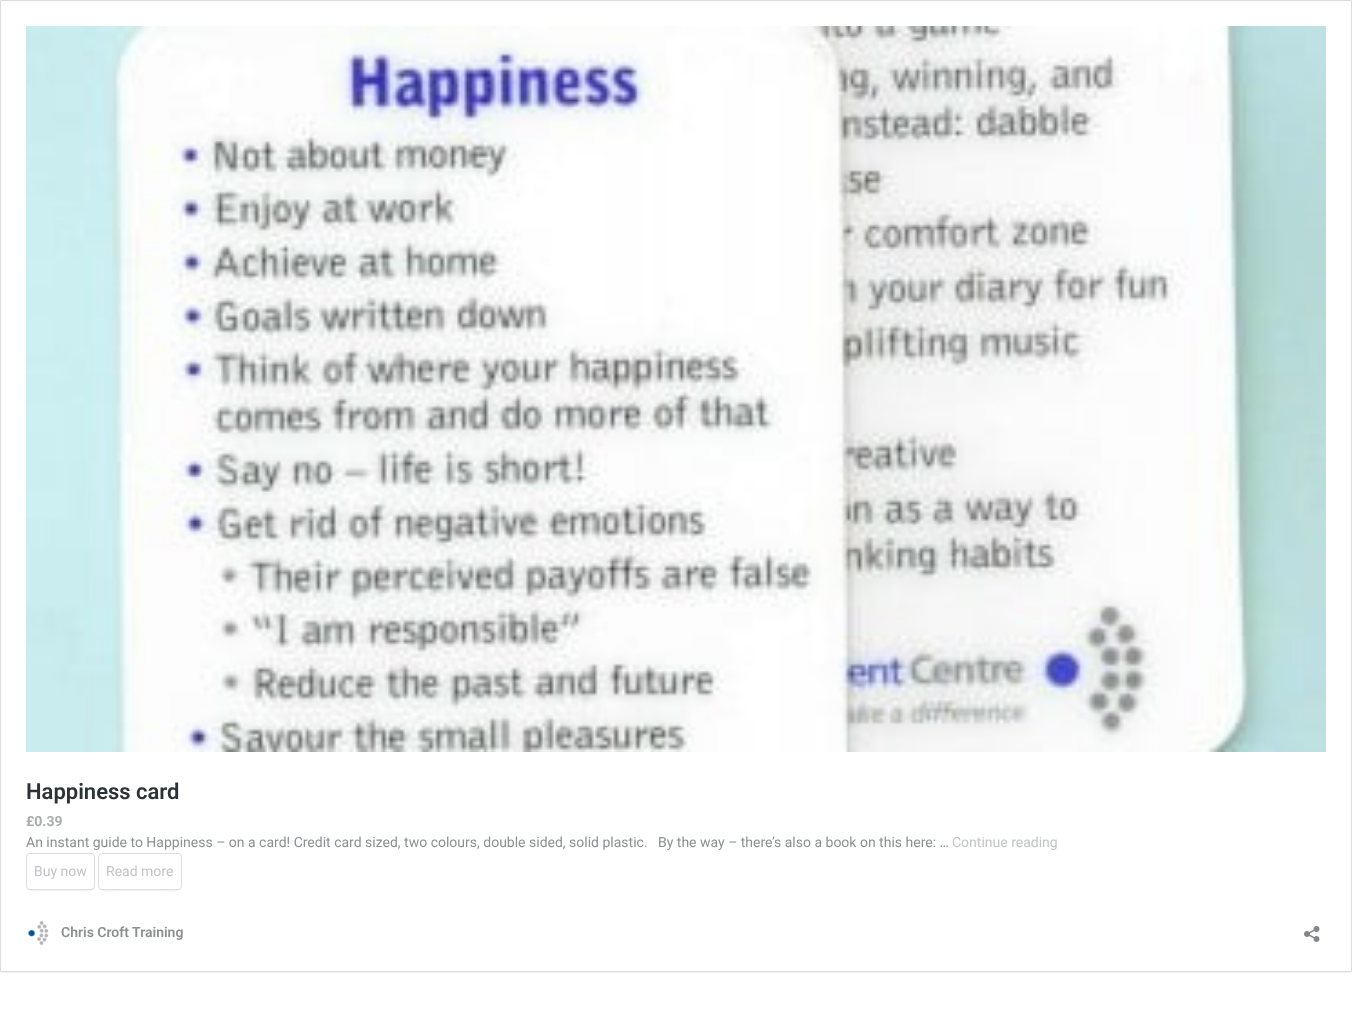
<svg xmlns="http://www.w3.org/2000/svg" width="1352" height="1015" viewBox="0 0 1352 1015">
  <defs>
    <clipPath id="clip1"><path d="M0 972h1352v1H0z"/></clipPath>
  </defs>
  <rect width="100%" height="100%" fill="#fff"/>
  <g clip-path="url(#clip1)">
    <path d="M0 1h1352v972H0z" fill="#0000000d" filter="blur(0.5px)"/>
  </g>
  <path d="M0.5 0.5h1351v971H0.5z" fill="none" stroke="#dcdcde"/>
  <image x="26" y="26" width="1300" height="726" href="img/1.png"/>
  <path d="M26 886C26 893 35 891 40 891H81C86 891 95 893 95 886C95 888 93 890 91 890H30C28 890 26 888 26 886Z" fill="#f2f2f2"/>
  <rect x="26.5" y="853.5" width="68" height="36" rx="3.5" fill="none" stroke="#ddd"/>
  <path d="M98 886C98 894 110 891 115 891H165C170 891 182 894 182 886C182 888 180 890 178 890H102C100 890 98 888 98 886Z" fill="#f2f2f2"/>
  <rect x="98.5" y="853.5" width="83" height="36" rx="3.5" fill="none" stroke="#ddd"/>
  <image x="28" y="920" width="21" height="26" href="img/2.png"/>
  <image x="1304" y="926" width="16" height="16" href="img/3.png"/>
  <text x="26" y="799" font-family="Roboto" font-size="22" font-weight="600" fill="#2c3338">Happiness card</text>
  <text x="26" y="826" font-family="Roboto" font-size="14" font-weight="bold" fill="#a9abaf">£0.39</text>
  <text x="26" y="847" font-family="Roboto" font-size="14" fill="#8c8f94" xml:space="preserve">An instant guide to Happiness – on a card! Credit card sized, two colours, double sided, solid plastic.   By the way – there’s also a book on this here: …</text>
  <g font-family="Roboto" font-size="14" fill="#c3c4c7">
    <text x="952" y="847">Continue reading</text>
    <text x="34" y="876">Buy now</text>
    <text x="106" y="876">Read more</text>
  </g>
  <text x="61" y="937" font-family="Roboto" font-size="14" font-weight="600" fill="#8c8f94">Chris Croft Training</text>
</svg>
